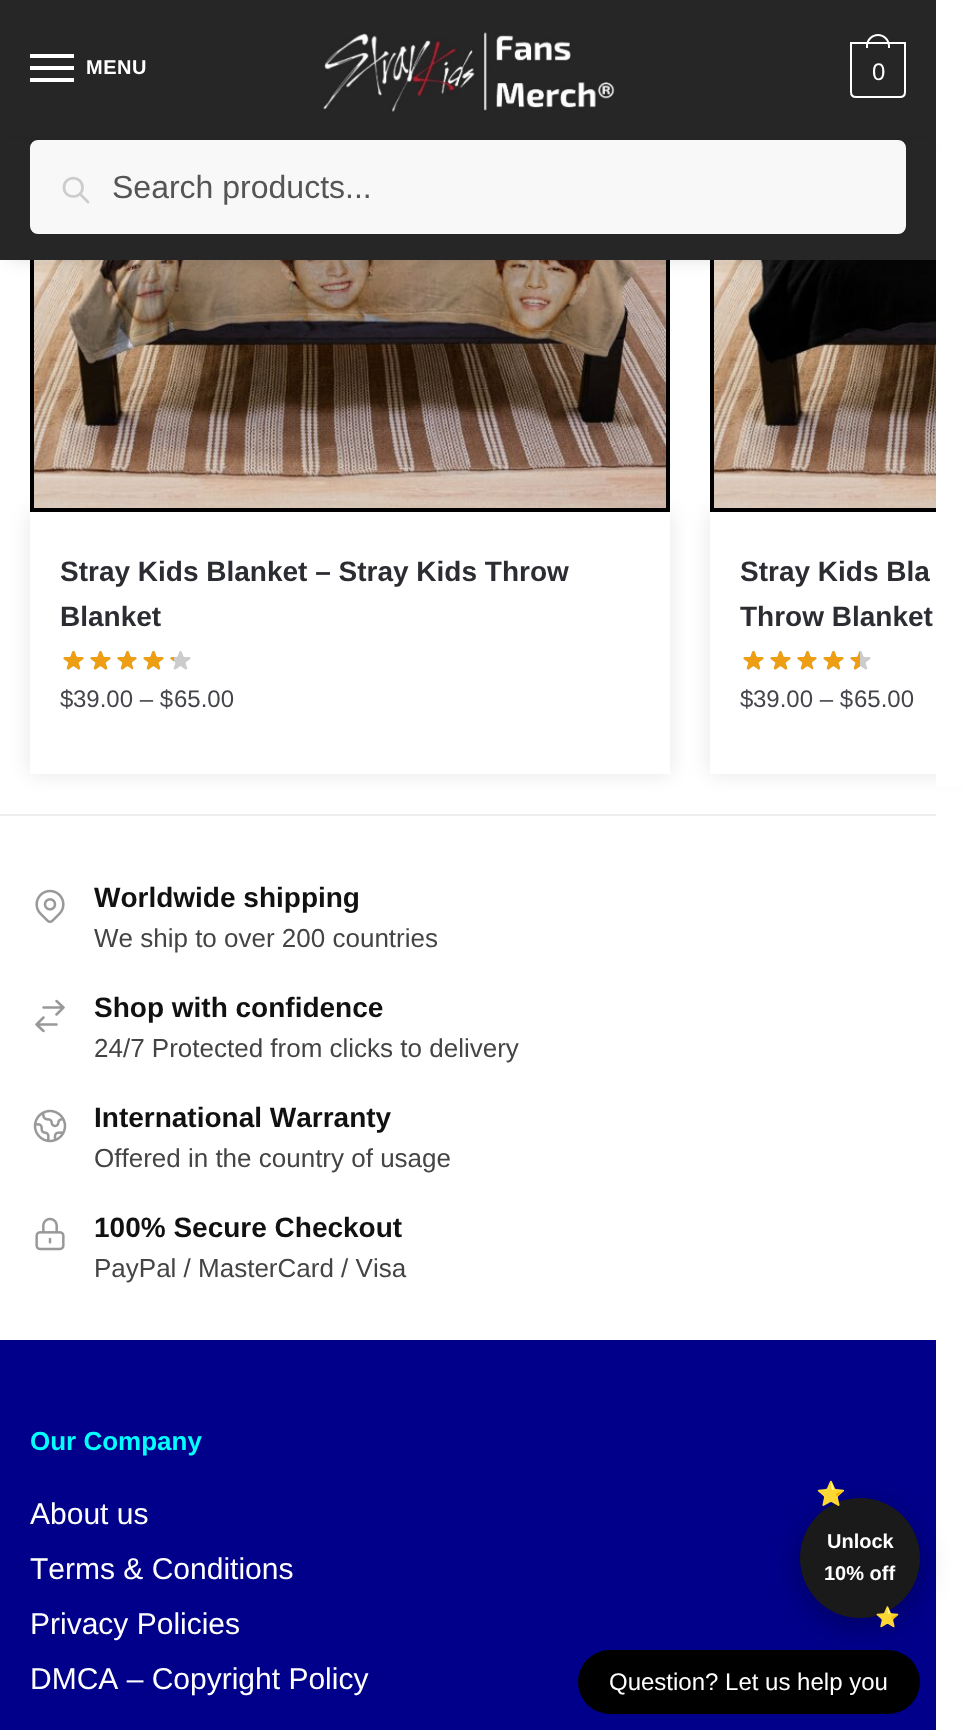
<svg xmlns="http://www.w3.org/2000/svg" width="965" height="1730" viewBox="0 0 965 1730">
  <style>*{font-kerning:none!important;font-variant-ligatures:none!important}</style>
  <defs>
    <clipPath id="clip1"><path d="M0 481H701V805H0ZM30 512H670V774H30Z" clip-rule="evenodd"/></clipPath>
    <clipPath id="clip2"><path d="M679 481H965V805H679ZM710 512H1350V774H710Z" clip-rule="evenodd"/></clipPath>
  </defs>
  <rect width="100%" height="100%" fill="#fff"/>
  <g clip-path="url(#clip1)">
    <path d="M30 512h640v262H30z" fill="#0000001a" filter="blur(10px)"/>
  </g>
  <path d="M32 -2h636v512H32z" fill="none" stroke="#000" stroke-width="4"/>
  <g clip-path="url(#clip2)">
    <path d="M710 512h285v262H710z" fill="#0000001a" filter="blur(10px)"/>
  </g>
  <path d="M712 -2h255v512H712z" fill="none" stroke="#000" stroke-width="4"/>
  <path d="M0 0h936v140H0z" fill="#262626"/>
  <path d="M30 54h44v4H30z" fill="#fff"/>
  <path d="M30 66h44v4H30z" fill="#fff"/>
  <path d="M30 78h44v4H30z" fill="#fff"/>
  <image x="323" y="32" width="292" height="80" href="img/1.png"/>
  <path d="M851 43H905V92C905 95 903 97 900 97H856C853 97 851 95 851 92Z" fill="none" stroke="#fff" stroke-width="2"/>
  <path d="M878 34C884.5 34 890 39.5 890 46V48H866V46C866 39.5 871.5 34 878 34ZM878 36C883.5 36 888 40.5 888 46V48H868V46C868 40.5 872.5 36 878 36Z" fill="#fff" fill-rule="evenodd"/>
  <image x="34" y="260" width="632" height="248" href="img/2.png"/>
  <image x="714" y="260" width="222" height="248" href="img/5.png"/>
  <path d="M10 156h916v100H10z" fill="#0000002e" filter="blur(10px)"/>
  <path d="M0 140h936v120H0z" fill="#262626"/>
  <rect x="31" y="141" width="874" height="92" rx="7" fill="#f8f8f8" stroke="#f8f8f8" stroke-width="2"/>
  <path d="M88 202L80 194M82.5 187.5C82.5 199.5 64 199.5 64 187.5C64 175 82.5 175 82.5 187.5Z" fill="none" stroke="#ccc" stroke-width="2.7" stroke-linecap="round" stroke-linejoin="round"/>
  <image x="63" y="651" width="128" height="19" href="img/3.png"/>
  <image x="63" y="651" width="111" height="19" href="img/4.png"/>
  <image x="743" y="651" width="128" height="19" href="img/3.png"/>
  <image x="743" y="651" width="117" height="19" href="img/6.png"/>
  <path d="M936 153h29v634H936z" fill="#fff"/>
  <path d="M0 814h936v2H0z" fill="#eee"/>
  <image x="35" y="889" width="30" height="34" href="img/7.png"/>
  <path d="M43.5 1007.5H63.5M63.5 1007.5L56.5 1001M63.5 1007.5L56.5 1014.5M56.5 1024.5H36.5M36.5 1024.5L43.5 1031M36.5 1024.5L43.5 1017.5" fill="none" stroke="#999" stroke-width="2.5" stroke-linecap="round" stroke-linejoin="round"/>
  <image x="33" y="1109" width="34" height="34" href="img/8.png"/>
  <image x="35" y="1217" width="30" height="34" href="img/9.png"/>
  <path d="M0 1340h936v390H0z" fill="#00008b"/>
  <rect x="578" y="1650" width="342" height="64" rx="32" fill="#000"/>
  <rect x="800" y="1506" width="120" height="120" rx="60" fill="#0000004d" filter="blur(15px)"/>
  <circle cx="860" cy="1558" r="60" fill="#1a1a1a"/>
  <text x="86" y="74" font-family="Liberation Sans" font-size="20" font-weight="bold" letter-spacing="0.5" fill="#fff">MENU</text>
  <text x="872" y="80" font-family="Liberation Sans" font-size="24" letter-spacing="-1" fill="#fff">0</text>
  <text x="112" y="198" font-family="Liberation Sans" font-size="32" fill="#555">Search products...</text>
  <g font-family="Liberation Sans" font-size="28" font-weight="bold" fill="#2c2d33">
    <text x="60" y="581">Stray Kids Blanket – Stray Kids Throw</text>
    <text x="60" y="626">Blanket</text>
  </g>
  <g font-family="Liberation Sans" font-size="24" fill="#43454b">
    <text x="60" y="707">$</text>
    <text x="73" y="707">39.00 – $</text>
    <text x="174" y="707">65.00</text>
  </g>
  <g font-family="Liberation Sans" font-size="28" font-weight="bold" fill="#2c2d33">
    <text x="740" y="581">Stray Kids Bla</text>
    <text x="740" y="626">Throw Blanket</text>
  </g>
  <g font-family="Liberation Sans" font-size="24" fill="#43454b">
    <text x="740" y="707">$</text>
    <text x="753" y="707">39.00 – $</text>
    <text x="854" y="707">65.00</text>
  </g>
  <text x="94" y="907" font-family="Liberation Sans" font-size="28" font-weight="bold" fill="#111">Worldwide shipping</text>
  <text x="94" y="947" font-family="Liberation Sans" font-size="26" fill="#444">We ship to over 200 countries</text>
  <text x="94" y="1017" font-family="Liberation Sans" font-size="28" font-weight="bold" fill="#111">Shop with confidence</text>
  <text x="94" y="1057" font-family="Liberation Sans" font-size="26" fill="#444">24/7 Protected from clicks to delivery</text>
  <text x="94" y="1127" font-family="Liberation Sans" font-size="28" font-weight="bold" fill="#111">International Warranty</text>
  <text x="94" y="1167" font-family="Liberation Sans" font-size="26" fill="#444">Offered in the country of usage</text>
  <text x="94" y="1237" font-family="Liberation Sans" font-size="28" font-weight="bold" fill="#111">100% Secure Checkout</text>
  <text x="94" y="1277" font-family="Liberation Sans" font-size="26" fill="#444">PayPal / MasterCard / Visa</text>
  <text x="30" y="1450" font-family="Liberation Sans" font-size="26" font-weight="bold" fill="#0ff">Our Company</text>
  <g font-family="Liberation Sans" font-size="30" fill="#fff">
    <text x="30" y="1524">About us</text>
    <text x="30" y="1579">Terms &amp; Conditions</text>
    <text x="30" y="1634">Privacy Policies</text>
    <text x="30" y="1689">DMCA – Copyright Policy</text>
  </g>
  <text x="816" y="1502" font-family="Noto Color Emoji" font-size="24" font-weight="bold" fill="#ffd700">⭐</text>
  <g font-family="Liberation Sans" font-size="20" font-weight="bold" fill="#fff">
    <text x="827" y="1548">Unlock</text>
    <text x="824" y="1580">10% off</text>
  </g>
  <text x="875" y="1624" font-family="Noto Color Emoji" font-size="20" font-weight="bold" fill="#ffd700">⭐</text>
  <text x="609" y="1690" font-family="Liberation Sans" font-size="24" fill="#fff">Question? Let us help you</text>
</svg>
